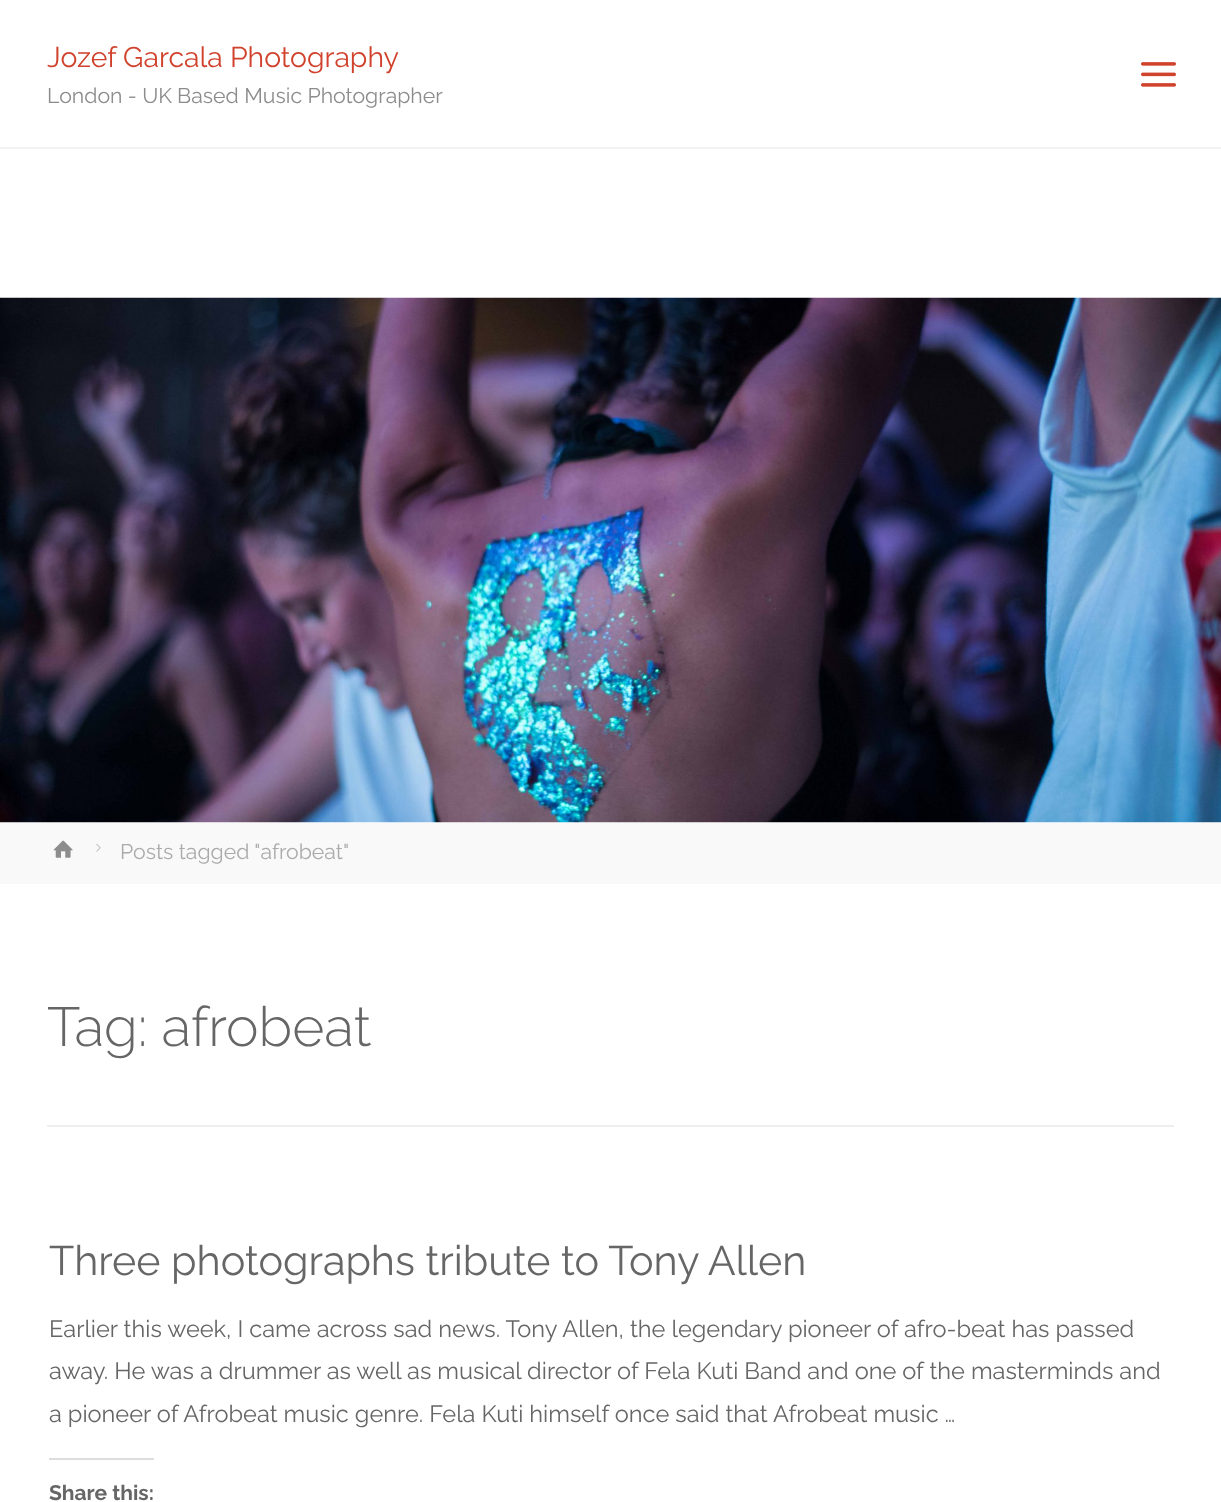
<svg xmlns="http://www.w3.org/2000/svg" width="1221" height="1502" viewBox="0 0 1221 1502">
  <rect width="100%" height="100%" fill="#fff"/>
  <path d="M0 147h1221v2H0z" fill="#f2f2f2"/>
  <image x="1141" y="62" width="35" height="25" href="img/1.png"/>
  <image x="0" y="297" width="1221" height="526" href="img/2.png"/>
  <path d="M0 823h1221v61H0z" fill="#f9f9f9"/>
  <image x="53" y="840" width="20" height="18" href="img/3.png"/>
  <image x="96" y="843" width="5" height="9" href="img/4.png"/>
  <path d="M47 1125h1127v2H47z" fill="#eee"/>
  <path d="M49 1458h105v2H49z" fill="#ddd"/>
  <text x="47" y="67" font-family="Raleway" font-size="28.4" fill="#d0422c">Jozef Garcala Photography</text>
  <text x="47" y="103" font-family="Raleway" font-size="21.25" fill="#8c8c8c">London - UK Based Music Photographer</text>
  <text x="120" y="859" font-family="Raleway" font-size="21.25" fill="#ababab">Posts tagged "afrobeat"</text>
  <text x="47" y="1046" font-family="Raleway" font-size="55" font-weight="300" fill="#666">Tag: afrobeat</text>
  <text x="49" y="1275" font-family="Raleway" font-size="41.3" fill="#666">Three photographs tribute to Tony Allen</text>
  <g font-family="Raleway" font-size="23.6" fill="#666">
    <text x="49" y="1337">Earlier this week, I came across sad news. Tony Allen, the legendary pioneer of afro-beat has passed</text>
    <text x="49" y="1379">away. He was a drummer as well as musical director of Fela Kuti Band and one of the masterminds and</text>
    <text x="49" y="1422">a pioneer of Afrobeat music genre. Fela Kuti himself once said that Afrobeat music …</text>
  </g>
  <text x="49" y="1500" font-family="Raleway" font-size="21" font-weight="bold" fill="#666">Share this:</text>
</svg>
